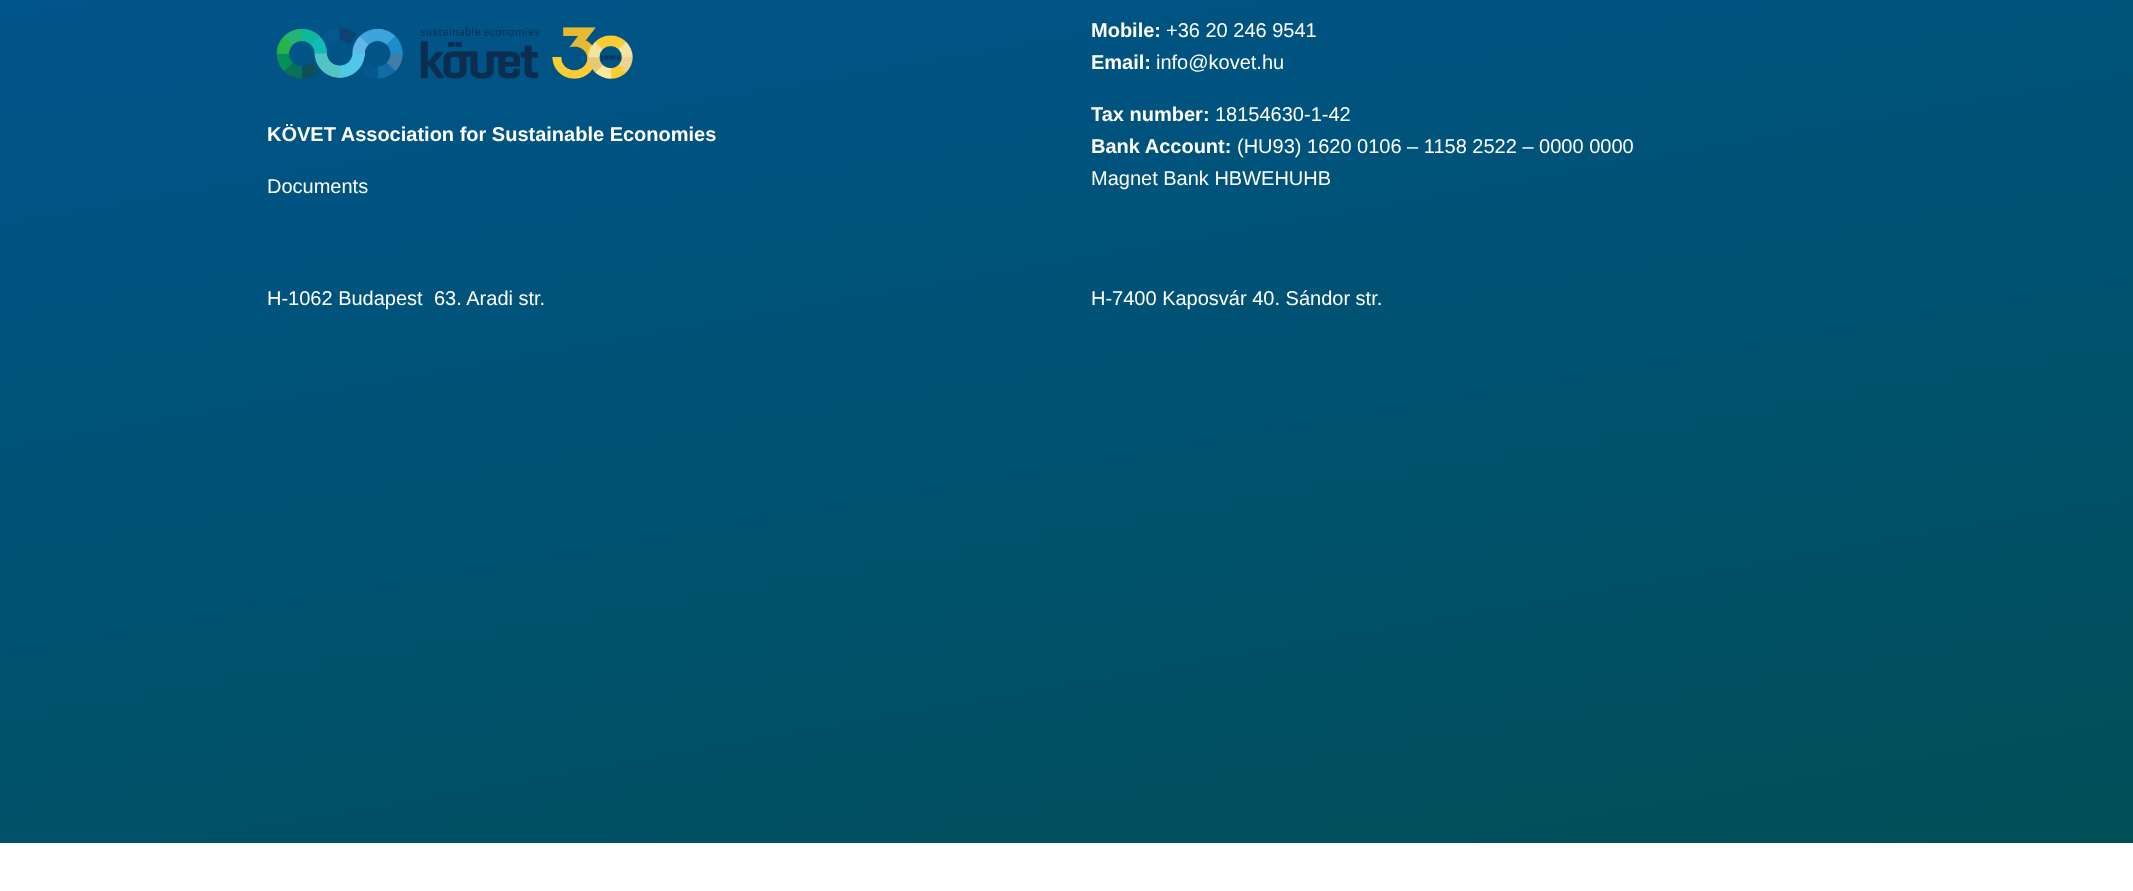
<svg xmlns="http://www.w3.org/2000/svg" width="2133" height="891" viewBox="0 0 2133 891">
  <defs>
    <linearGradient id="g1" gradientUnits="userSpaceOnUse" x1="954" y1="-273" x2="1180" y2="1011"><stop offset="0" stop-color="#005590"/><stop offset="1" stop-color="#004f57"/></linearGradient>
  </defs>
  <rect width="100%" height="100%" fill="#fff"/>
  <path d="M0 0h2133v843H0z" fill="url(#g1)"/>
  <image x="276" y="27" width="357" height="52" href="img/1.png"/>
  <text x="267" y="141" font-family="Liberation Sans" font-size="20" font-weight="bold" fill="#fff">KÖVET Association for Sustainable Economies</text>
  <text x="267" y="193" font-family="Liberation Sans" font-size="20" fill="#fff">Documents</text>
  <text x="1091" y="37" font-family="Liberation Sans" font-size="20" font-weight="bold" fill="#fff">Mobile:</text>
  <text x="1166" y="37" font-family="Liberation Sans" font-size="20" fill="#fff">+36 20 246 9541</text>
  <text x="1091" y="69" font-family="Liberation Sans" font-size="20" font-weight="bold" fill="#fff">Email:</text>
  <text x="1156" y="69" font-family="Liberation Sans" font-size="20" fill="#fff">info@kovet.hu</text>
  <text x="1091" y="121" font-family="Liberation Sans" font-size="20" font-weight="bold" fill="#fff">Tax number:</text>
  <text x="1215" y="121" font-family="Liberation Sans" font-size="20" fill="#fff">18154630-1-42</text>
  <text x="1091" y="153" font-family="Liberation Sans" font-size="20" font-weight="bold" fill="#fff">Bank Account:</text>
  <g font-family="Liberation Sans" font-size="20" fill="#fff">
    <text x="1237" y="153">(HU93) 1620 0106 – 1158 2522 – 0000 0000</text>
    <text x="1091" y="185">Magnet Bank HBWEHUHB</text>
    <text x="267" y="305">H-1062 Budapest</text>
    <text x="434" y="305">63. Aradi str.</text>
    <text x="1091" y="305">H-7400 Kaposvár 40. Sándor str.</text>
  </g>
</svg>
